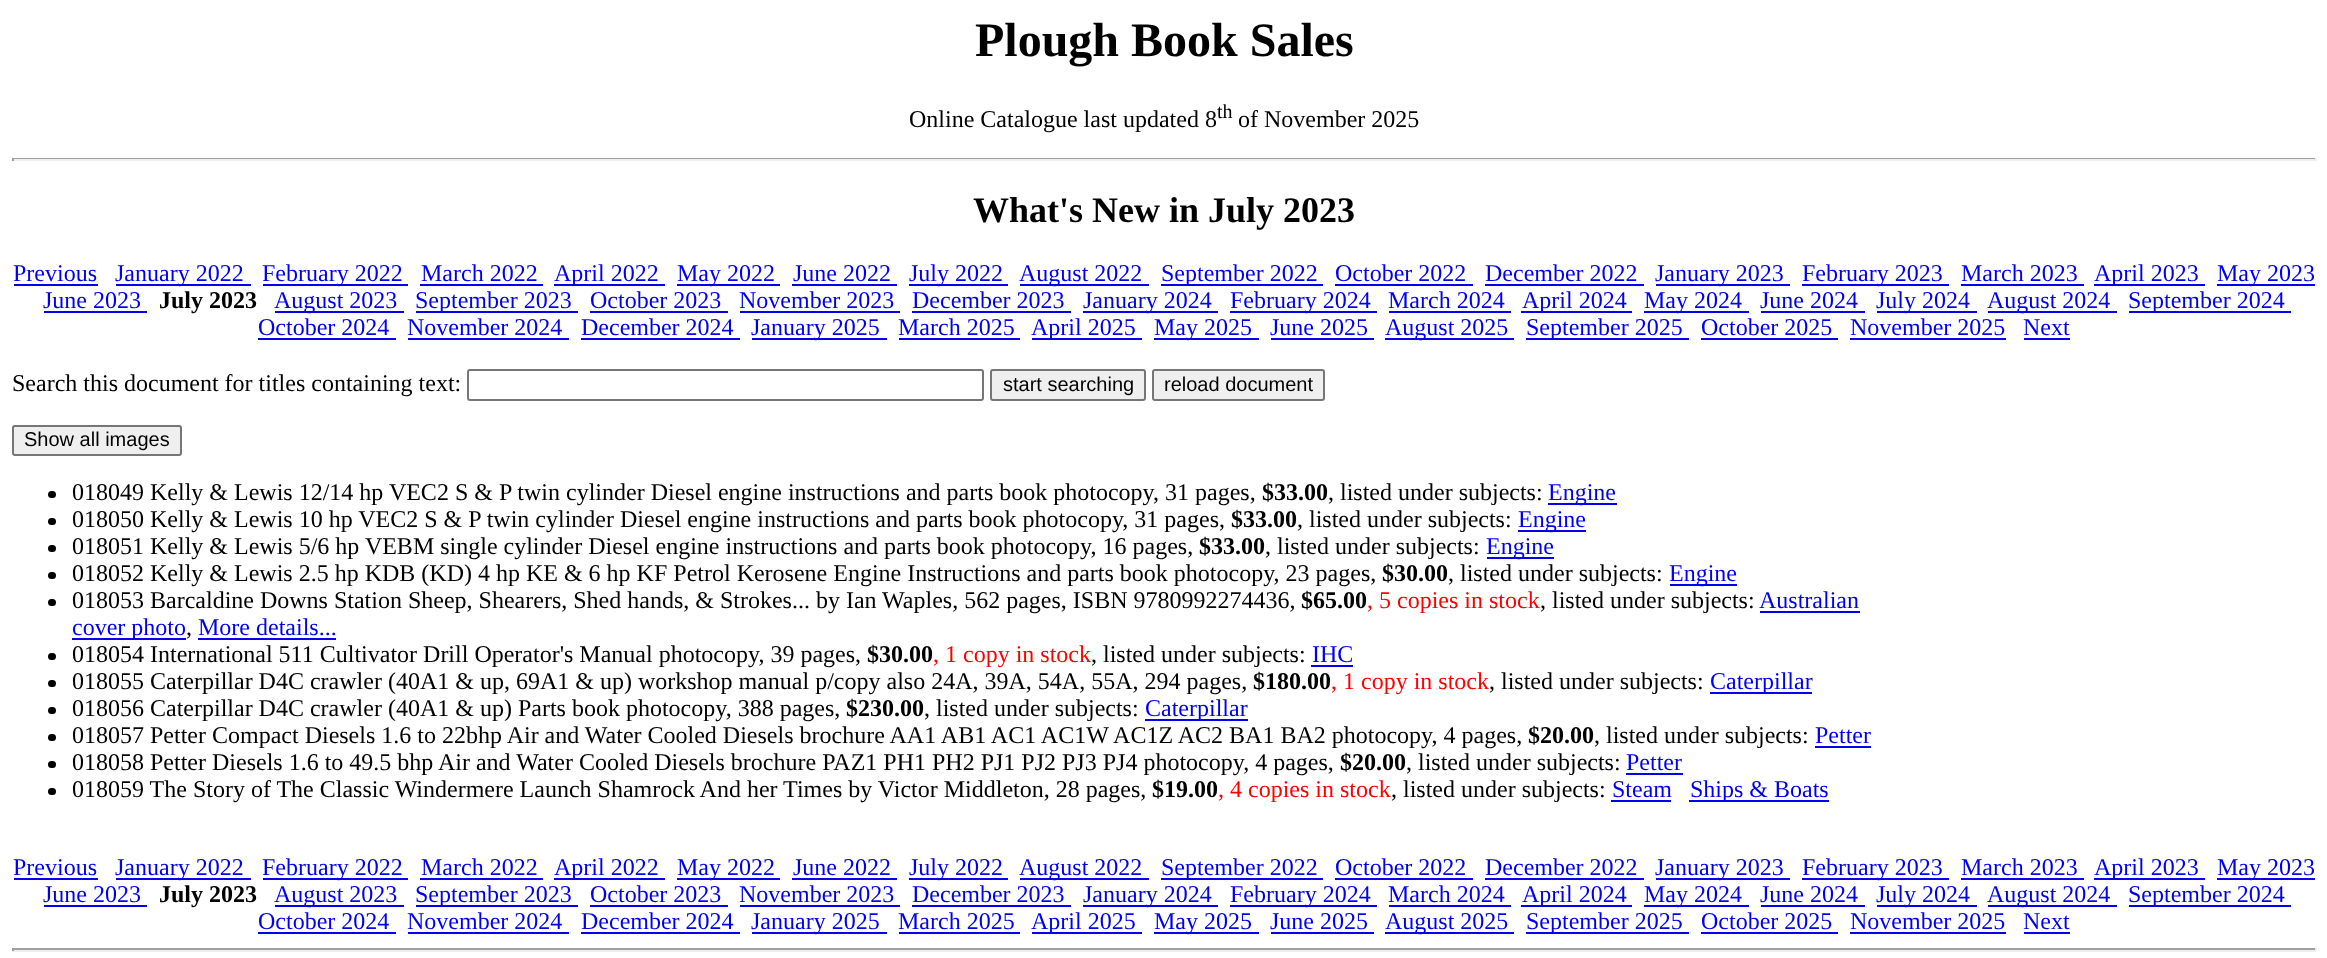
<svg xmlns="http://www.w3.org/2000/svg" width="2327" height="958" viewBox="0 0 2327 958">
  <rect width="100%" height="100%" fill="#fff"/>
  <path d="M12 158h2304v1H12z" fill="#9f9f9f"/>
  <path d="M2315 158h2v3H2315z" fill="#eee"/>
  <path d="M12 159h2304v2H12z" fill="#eee"/>
  <path d="M12 158h2v3H12z" fill="#9f9f9f"/>
  <path d="M14 284h84v2H14z" fill="#00e"/>
  <path d="M116 284h135v2H116z" fill="#00e"/>
  <path d="M263 284h145v2H263z" fill="#00e"/>
  <path d="M420 284h123v2H420z" fill="#00e"/>
  <path d="M554 284h111v2H554z" fill="#00e"/>
  <path d="M677 284h103v2H677z" fill="#00e"/>
  <path d="M792 284h105v2H792z" fill="#00e"/>
  <path d="M909 284h99v2H909z" fill="#00e"/>
  <path d="M1020 284h129v2H1020z" fill="#00e"/>
  <path d="M1161 284h162v2H1161z" fill="#00e"/>
  <path d="M1335 284h138v2H1335z" fill="#00e"/>
  <path d="M1485 284h159v2H1485z" fill="#00e"/>
  <path d="M1656 284h134v2H1656z" fill="#00e"/>
  <path d="M1802 284h147v2H1802z" fill="#00e"/>
  <path d="M1961 284h123v2H1961z" fill="#00e"/>
  <path d="M2094 284h111v2H2094z" fill="#00e"/>
  <path d="M2217 284h98v2H2217z" fill="#00e"/>
  <path d="M44 311h103v2H44z" fill="#00e"/>
  <path d="M275 311h129v2H275z" fill="#00e"/>
  <path d="M416 311h162v2H416z" fill="#00e"/>
  <path d="M590 311h138v2H590z" fill="#00e"/>
  <path d="M740 311h160v2H740z" fill="#00e"/>
  <path d="M912 311h159v2H912z" fill="#00e"/>
  <path d="M1083 311h135v2H1083z" fill="#00e"/>
  <path d="M1230 311h147v2H1230z" fill="#00e"/>
  <path d="M1389 311h122v2H1389z" fill="#00e"/>
  <path d="M1521 311h111v2H1521z" fill="#00e"/>
  <path d="M1644 311h105v2H1644z" fill="#00e"/>
  <path d="M1761 311h104v2H1761z" fill="#00e"/>
  <path d="M1877 311h100v2H1877z" fill="#00e"/>
  <path d="M1988 311h129v2H1988z" fill="#00e"/>
  <path d="M2129 311h162v2H2129z" fill="#00e"/>
  <path d="M258 338h138v2H258z" fill="#00e"/>
  <path d="M408 338h161v2H408z" fill="#00e"/>
  <path d="M581 338h159v2H581z" fill="#00e"/>
  <path d="M752 338h135v2H752z" fill="#00e"/>
  <path d="M899 338h121v2H899z" fill="#00e"/>
  <path d="M1032 338h110v2H1032z" fill="#00e"/>
  <path d="M1154 338h105v2H1154z" fill="#00e"/>
  <path d="M1271 338h103v2H1271z" fill="#00e"/>
  <path d="M1385 338h129v2H1385z" fill="#00e"/>
  <path d="M1526 338h163v2H1526z" fill="#00e"/>
  <path d="M1701 338h137v2H1701z" fill="#00e"/>
  <path d="M1850 338h156v2H1850z" fill="#00e"/>
  <path d="M2024 338h46v2H2024z" fill="#00e"/>
  <rect x="468" y="370" width="515" height="30" rx="2" fill="none" stroke="#767676" stroke-width="2"/>
  <rect x="991" y="370" width="154" height="30" rx="2" fill="#efefef" stroke="#767676" stroke-width="2"/>
  <rect x="1153" y="370" width="171" height="30" rx="2" fill="#efefef" stroke="#767676" stroke-width="2"/>
  <rect x="13" y="426" width="168" height="29" rx="2" fill="#efefef" stroke="#767676" stroke-width="2"/>
  <rect x="48" y="491" width="8" height="7" rx="3.5" fill="#000"/>
  <path d="M1548 503h69v2H1548z" fill="#00e"/>
  <rect x="48" y="518" width="8" height="7" rx="3.5" fill="#000"/>
  <path d="M1518 530h68v2H1518z" fill="#00e"/>
  <rect x="48" y="545" width="8" height="7" rx="3.5" fill="#000"/>
  <path d="M1487 557h67v2H1487z" fill="#00e"/>
  <rect x="48" y="572" width="8" height="7" rx="3.5" fill="#000"/>
  <path d="M1670 584h67v2H1670z" fill="#00e"/>
  <rect x="48" y="599" width="8" height="7" rx="3.5" fill="#000"/>
  <path d="M1760 611h100v2H1760z" fill="#00e"/>
  <path d="M72 638h114v2H72z" fill="#00e"/>
  <path d="M198 638h138v2H198z" fill="#00e"/>
  <rect x="48" y="653" width="8" height="7" rx="3.5" fill="#000"/>
  <path d="M1311 665h42v2H1311z" fill="#00e"/>
  <rect x="48" y="680" width="8" height="7" rx="3.5" fill="#000"/>
  <path d="M1710 692h102v2H1710z" fill="#00e"/>
  <rect x="48" y="707" width="8" height="7" rx="3.5" fill="#000"/>
  <path d="M1145 719h103v2H1145z" fill="#00e"/>
  <rect x="48" y="734" width="8" height="7" rx="3.5" fill="#000"/>
  <path d="M1815 746h56v2H1815z" fill="#00e"/>
  <rect x="48" y="761" width="8" height="7" rx="3.5" fill="#000"/>
  <path d="M1626 773h57v2H1626z" fill="#00e"/>
  <rect x="48" y="788" width="8" height="7" rx="3.5" fill="#000"/>
  <path d="M1611 800h60v2H1611z" fill="#00e"/>
  <path d="M1689 800h140v2H1689z" fill="#00e"/>
  <path d="M14 878h84v2H14z" fill="#00e"/>
  <path d="M116 878h135v2H116z" fill="#00e"/>
  <path d="M263 878h145v2H263z" fill="#00e"/>
  <path d="M420 878h123v2H420z" fill="#00e"/>
  <path d="M554 878h111v2H554z" fill="#00e"/>
  <path d="M677 878h103v2H677z" fill="#00e"/>
  <path d="M792 878h105v2H792z" fill="#00e"/>
  <path d="M909 878h99v2H909z" fill="#00e"/>
  <path d="M1020 878h129v2H1020z" fill="#00e"/>
  <path d="M1161 878h162v2H1161z" fill="#00e"/>
  <path d="M1335 878h138v2H1335z" fill="#00e"/>
  <path d="M1485 878h159v2H1485z" fill="#00e"/>
  <path d="M1656 878h134v2H1656z" fill="#00e"/>
  <path d="M1802 878h147v2H1802z" fill="#00e"/>
  <path d="M1961 878h123v2H1961z" fill="#00e"/>
  <path d="M2094 878h111v2H2094z" fill="#00e"/>
  <path d="M2217 878h98v2H2217z" fill="#00e"/>
  <path d="M44 905h103v2H44z" fill="#00e"/>
  <path d="M275 905h129v2H275z" fill="#00e"/>
  <path d="M416 905h162v2H416z" fill="#00e"/>
  <path d="M590 905h138v2H590z" fill="#00e"/>
  <path d="M740 905h160v2H740z" fill="#00e"/>
  <path d="M912 905h159v2H912z" fill="#00e"/>
  <path d="M1083 905h135v2H1083z" fill="#00e"/>
  <path d="M1230 905h147v2H1230z" fill="#00e"/>
  <path d="M1389 905h122v2H1389z" fill="#00e"/>
  <path d="M1521 905h111v2H1521z" fill="#00e"/>
  <path d="M1644 905h105v2H1644z" fill="#00e"/>
  <path d="M1761 905h104v2H1761z" fill="#00e"/>
  <path d="M1877 905h100v2H1877z" fill="#00e"/>
  <path d="M1988 905h129v2H1988z" fill="#00e"/>
  <path d="M2129 905h162v2H2129z" fill="#00e"/>
  <path d="M258 932h138v2H258z" fill="#00e"/>
  <path d="M408 932h161v2H408z" fill="#00e"/>
  <path d="M581 932h159v2H581z" fill="#00e"/>
  <path d="M752 932h135v2H752z" fill="#00e"/>
  <path d="M899 932h121v2H899z" fill="#00e"/>
  <path d="M1032 932h110v2H1032z" fill="#00e"/>
  <path d="M1154 932h105v2H1154z" fill="#00e"/>
  <path d="M1271 932h103v2H1271z" fill="#00e"/>
  <path d="M1385 932h129v2H1385z" fill="#00e"/>
  <path d="M1526 932h163v2H1526z" fill="#00e"/>
  <path d="M1701 932h137v2H1701z" fill="#00e"/>
  <path d="M1850 932h156v2H1850z" fill="#00e"/>
  <path d="M2024 932h46v2H2024z" fill="#00e"/>
  <path d="M12 948h2304v2H12z" fill="#9f9f9f"/>
  <path d="M2315 948h2v3H2315z" fill="#eee"/>
  <path d="M12 950h2304v2H12z" fill="#eee"/>
  <path d="M12 948h2v3H12z" fill="#9f9f9f"/>
  <text x="975" y="56" font-family="Liberation Serif" font-size="48" font-weight="bold" fill="#000">Plough Book Sales</text>
  <text x="909" y="127" font-family="Liberation Serif" font-size="24" fill="#000">Online Catalogue last updated 8</text>
  <text x="1217" y="118" font-family="Liberation Serif" font-size="20" fill="#000">th</text>
  <text x="1238" y="127" font-family="Liberation Serif" font-size="24" fill="#000">of November 2025</text>
  <text x="973" y="222" font-family="Liberation Serif" font-size="36" font-weight="bold" fill="#000">What's New in July 2023</text>
  <g font-family="Liberation Serif" font-size="24" fill="#00e">
    <text x="13" y="281">Previous</text>
    <text x="115" y="281">January 2022</text>
    <text x="262" y="281">February 2022</text>
    <text x="421" y="281">March 2022</text>
    <text x="554" y="281">April 2022</text>
    <text x="677" y="281">May 2022</text>
    <text x="793" y="281">June 2022</text>
    <text x="909" y="281">July 2022</text>
    <text x="1019" y="281">August 2022</text>
    <text x="1161" y="281">September 2022</text>
    <text x="1335" y="281">October 2022</text>
    <text x="1485" y="281">December 2022</text>
    <text x="1655" y="281">January 2023</text>
    <text x="1802" y="281">February 2023</text>
    <text x="1961" y="281">March 2023</text>
    <text x="2094" y="281">April 2023</text>
    <text x="2217" y="281">May 2023</text>
    <text x="43" y="308">June 2023</text>
  </g>
  <text x="159" y="308" font-family="Liberation Serif" font-size="24" font-weight="bold" fill="#000">July 2023</text>
  <g font-family="Liberation Serif" font-size="24" fill="#00e">
    <text x="274" y="308">August 2023</text>
    <text x="415" y="308">September 2023</text>
    <text x="590" y="308">October 2023</text>
    <text x="739" y="308">November 2023</text>
    <text x="912" y="308">December 2023</text>
    <text x="1083" y="308">January 2024</text>
    <text x="1230" y="308">February 2024</text>
    <text x="1388" y="308">March 2024</text>
    <text x="1522" y="308">April 2024</text>
    <text x="1644" y="308">May 2024</text>
    <text x="1760" y="308">June 2024</text>
    <text x="1876" y="308">July 2024</text>
    <text x="1987" y="308">August 2024</text>
    <text x="2128" y="308">September 2024</text>
    <text x="258" y="335">October 2024</text>
    <text x="407" y="335">November 2024</text>
    <text x="581" y="335">December 2024</text>
    <text x="751" y="335">January 2025</text>
    <text x="898" y="335">March 2025</text>
    <text x="1031" y="335">April 2025</text>
    <text x="1154" y="335">May 2025</text>
    <text x="1270" y="335">June 2025</text>
    <text x="1385" y="335">August 2025</text>
    <text x="1526" y="335">September 2025</text>
    <text x="1701" y="335">October 2025</text>
    <text x="1850" y="335">November 2025</text>
    <text x="2023" y="335">Next</text>
  </g>
  <text x="12" y="391" font-family="Liberation Serif" font-size="24" fill="#000">Search this document for titles containing text:</text>
  <g font-family="Liberation Sans" font-size="20" fill="#000">
    <text x="1003" y="391">start searching</text>
    <text x="1164" y="391">reload document</text>
    <text x="24" y="446">Show all images</text>
  </g>
  <text x="72" y="500" font-family="Liberation Serif" font-size="24" fill="#000">018049 Kelly &amp; Lewis 12/14 hp VEC2 S &amp; P twin cylinder Diesel engine instructions and parts book photocopy, 31 pages,</text>
  <text x="1262" y="500" font-family="Liberation Serif" font-size="24" font-weight="bold" fill="#000">$33.00</text>
  <text x="1328" y="500" font-family="Liberation Serif" font-size="24" fill="#000">, listed under subjects:</text>
  <text x="1548" y="500" font-family="Liberation Serif" font-size="24" fill="#00e">Engine</text>
  <text x="72" y="527" font-family="Liberation Serif" font-size="24" fill="#000">018050 Kelly &amp; Lewis 10 hp VEC2 S &amp; P twin cylinder Diesel engine instructions and parts book photocopy, 31 pages,</text>
  <text x="1231" y="527" font-family="Liberation Serif" font-size="24" font-weight="bold" fill="#000">$33.00</text>
  <text x="1297" y="527" font-family="Liberation Serif" font-size="24" fill="#000">, listed under subjects:</text>
  <text x="1518" y="527" font-family="Liberation Serif" font-size="24" fill="#00e">Engine</text>
  <text x="72" y="554" font-family="Liberation Serif" font-size="24" fill="#000">018051 Kelly &amp; Lewis 5/6 hp VEBM single cylinder Diesel engine instructions and parts book photocopy, 16 pages,</text>
  <text x="1199" y="554" font-family="Liberation Serif" font-size="24" font-weight="bold" fill="#000">$33.00</text>
  <text x="1265" y="554" font-family="Liberation Serif" font-size="24" fill="#000">, listed under subjects:</text>
  <text x="1486" y="554" font-family="Liberation Serif" font-size="24" fill="#00e">Engine</text>
  <text x="72" y="581" font-family="Liberation Serif" font-size="24" fill="#000">018052 Kelly &amp; Lewis 2.5 hp KDB (KD) 4 hp KE &amp; 6 hp KF Petrol Kerosene Engine Instructions and parts book photocopy, 23 pages,</text>
  <text x="1382" y="581" font-family="Liberation Serif" font-size="24" font-weight="bold" fill="#000">$30.00</text>
  <text x="1448" y="581" font-family="Liberation Serif" font-size="24" fill="#000">, listed under subjects:</text>
  <text x="1669" y="581" font-family="Liberation Serif" font-size="24" fill="#00e">Engine</text>
  <text x="72" y="608" font-family="Liberation Serif" font-size="24" fill="#000">018053 Barcaldine Downs Station Sheep, Shearers, Shed hands, &amp; Strokes... by Ian Waples, 562 pages, ISBN 9780992274436,</text>
  <text x="1301" y="608" font-family="Liberation Serif" font-size="24" font-weight="bold" fill="#000">$65.00</text>
  <text x="1367" y="608" font-family="Liberation Serif" font-size="24" fill="#f00">, 5 copies in stock</text>
  <text x="1540" y="608" font-family="Liberation Serif" font-size="24" fill="#000">, listed under subjects:</text>
  <g font-family="Liberation Serif" font-size="24" fill="#00e">
    <text x="1759" y="608">Australian</text>
    <text x="72" y="635">cover photo</text>
  </g>
  <text x="186" y="635" font-family="Liberation Serif" font-size="24" fill="#000">,</text>
  <text x="198" y="635" font-family="Liberation Serif" font-size="24" fill="#00e">More details...</text>
  <text x="72" y="662" font-family="Liberation Serif" font-size="24" fill="#000">018054 International 511 Cultivator Drill Operator's Manual photocopy, 39 pages,</text>
  <text x="867" y="662" font-family="Liberation Serif" font-size="24" font-weight="bold" fill="#000">$30.00</text>
  <text x="933" y="662" font-family="Liberation Serif" font-size="24" fill="#f00">, 1 copy in stock</text>
  <text x="1091" y="662" font-family="Liberation Serif" font-size="24" fill="#000">, listed under subjects:</text>
  <text x="1312" y="662" font-family="Liberation Serif" font-size="24" fill="#00e">IHC</text>
  <text x="72" y="689" font-family="Liberation Serif" font-size="24" fill="#000">018055 Caterpillar D4C crawler (40A1 &amp; up, 69A1 &amp; up) workshop manual p/copy also 24A, 39A, 54A, 55A, 294 pages,</text>
  <text x="1253" y="689" font-family="Liberation Serif" font-size="24" font-weight="bold" fill="#000">$180.00</text>
  <text x="1331" y="689" font-family="Liberation Serif" font-size="24" fill="#f00">, 1 copy in stock</text>
  <text x="1489" y="689" font-family="Liberation Serif" font-size="24" fill="#000">, listed under subjects:</text>
  <text x="1710" y="689" font-family="Liberation Serif" font-size="24" fill="#00e">Caterpillar</text>
  <text x="72" y="716" font-family="Liberation Serif" font-size="24" fill="#000">018056 Caterpillar D4C crawler (40A1 &amp; up) Parts book photocopy, 388 pages,</text>
  <text x="846" y="716" font-family="Liberation Serif" font-size="24" font-weight="bold" fill="#000">$230.00</text>
  <text x="924" y="716" font-family="Liberation Serif" font-size="24" fill="#000">, listed under subjects:</text>
  <text x="1145" y="716" font-family="Liberation Serif" font-size="24" fill="#00e">Caterpillar</text>
  <text x="72" y="743" font-family="Liberation Serif" font-size="24" fill="#000">018057 Petter Compact Diesels 1.6 to 22bhp Air and Water Cooled Diesels brochure AA1 AB1 AC1 AC1W AC1Z AC2 BA1 BA2 photocopy, 4 pages,</text>
  <text x="1528" y="743" font-family="Liberation Serif" font-size="24" font-weight="bold" fill="#000">$20.00</text>
  <text x="1594" y="743" font-family="Liberation Serif" font-size="24" fill="#000">, listed under subjects:</text>
  <text x="1815" y="743" font-family="Liberation Serif" font-size="24" fill="#00e">Petter</text>
  <text x="72" y="770" font-family="Liberation Serif" font-size="24" fill="#000">018058 Petter Diesels 1.6 to 49.5 bhp Air and Water Cooled Diesels brochure PAZ1 PH1 PH2 PJ1 PJ2 PJ3 PJ4 photocopy, 4 pages,</text>
  <text x="1340" y="770" font-family="Liberation Serif" font-size="24" font-weight="bold" fill="#000">$20.00</text>
  <text x="1406" y="770" font-family="Liberation Serif" font-size="24" fill="#000">, listed under subjects:</text>
  <text x="1626" y="770" font-family="Liberation Serif" font-size="24" fill="#00e">Petter</text>
  <text x="72" y="797" font-family="Liberation Serif" font-size="24" fill="#000">018059 The Story of The Classic Windermere Launch Shamrock And her Times by Victor Middleton, 28 pages,</text>
  <text x="1152" y="797" font-family="Liberation Serif" font-size="24" font-weight="bold" fill="#000">$19.00</text>
  <text x="1218" y="797" font-family="Liberation Serif" font-size="24" fill="#f00">, 4 copies in stock</text>
  <text x="1391" y="797" font-family="Liberation Serif" font-size="24" fill="#000">, listed under subjects:</text>
  <g font-family="Liberation Serif" font-size="24" fill="#00e">
    <text x="1612" y="797">Steam</text>
    <text x="1690" y="797">Ships &amp; Boats</text>
    <text x="13" y="875">Previous</text>
    <text x="115" y="875">January 2022</text>
    <text x="262" y="875">February 2022</text>
    <text x="421" y="875">March 2022</text>
    <text x="554" y="875">April 2022</text>
    <text x="677" y="875">May 2022</text>
    <text x="793" y="875">June 2022</text>
    <text x="909" y="875">July 2022</text>
    <text x="1019" y="875">August 2022</text>
    <text x="1161" y="875">September 2022</text>
    <text x="1335" y="875">October 2022</text>
    <text x="1485" y="875">December 2022</text>
    <text x="1655" y="875">January 2023</text>
    <text x="1802" y="875">February 2023</text>
    <text x="1961" y="875">March 2023</text>
    <text x="2094" y="875">April 2023</text>
    <text x="2217" y="875">May 2023</text>
    <text x="43" y="902">June 2023</text>
  </g>
  <text x="159" y="902" font-family="Liberation Serif" font-size="24" font-weight="bold" fill="#000">July 2023</text>
  <g font-family="Liberation Serif" font-size="24" fill="#00e">
    <text x="274" y="902">August 2023</text>
    <text x="415" y="902">September 2023</text>
    <text x="590" y="902">October 2023</text>
    <text x="739" y="902">November 2023</text>
    <text x="912" y="902">December 2023</text>
    <text x="1083" y="902">January 2024</text>
    <text x="1230" y="902">February 2024</text>
    <text x="1388" y="902">March 2024</text>
    <text x="1522" y="902">April 2024</text>
    <text x="1644" y="902">May 2024</text>
    <text x="1760" y="902">June 2024</text>
    <text x="1876" y="902">July 2024</text>
    <text x="1987" y="902">August 2024</text>
    <text x="2128" y="902">September 2024</text>
    <text x="258" y="929">October 2024</text>
    <text x="407" y="929">November 2024</text>
    <text x="581" y="929">December 2024</text>
    <text x="751" y="929">January 2025</text>
    <text x="898" y="929">March 2025</text>
    <text x="1031" y="929">April 2025</text>
    <text x="1154" y="929">May 2025</text>
    <text x="1270" y="929">June 2025</text>
    <text x="1385" y="929">August 2025</text>
    <text x="1526" y="929">September 2025</text>
    <text x="1701" y="929">October 2025</text>
    <text x="1850" y="929">November 2025</text>
    <text x="2023" y="929">Next</text>
  </g>
</svg>
